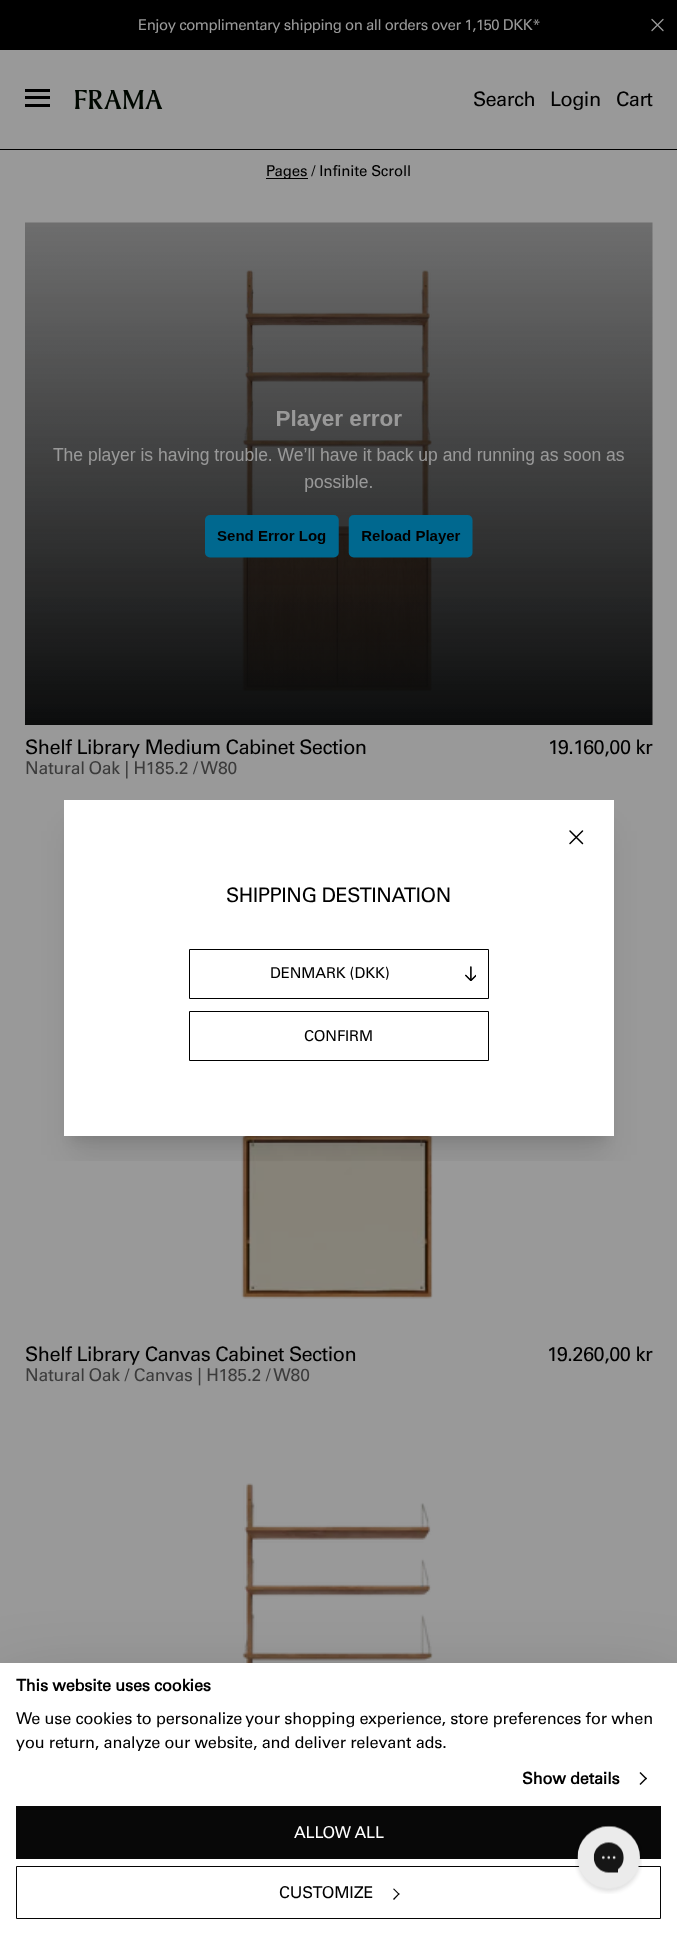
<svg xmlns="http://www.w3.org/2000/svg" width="677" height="1935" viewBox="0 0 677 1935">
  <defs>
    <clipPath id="clip1"><path d="M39 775h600v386H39z"/></clipPath>
  </defs>
  <rect width="100%" height="100%" fill="#999"/>
  <path d="M0 0h677v50H0z" fill="#000"/>
  <path d="M652 19.5L663 30.5M663 19.5L652 30.5" fill="none" stroke="#999" stroke-width="1.3" stroke-linecap="round"/>
  <path d="M0 149h677v1H0z" fill="#000"/>
  <path d="M25 89h25v3H25z" fill="#000"/>
  <path d="M25 96h25v3H25z" fill="#000"/>
  <path d="M25 104h25v3H25z" fill="#000"/>
  <image x="75" y="90" width="88" height="19" href="img/1.png"/>
  <image x="241" y="1136" width="192" height="163" href="img/5.png"/>
  <path d="M71 818h535v321H71z" fill="#0000001a" filter="blur(6px)"/>
  <g clip-path="url(#clip1)">
    <path d="M70 831h538v324H70z" fill="#0000001a" filter="blur(15.5px)"/>
  </g>
  <path d="M64 800h550v336H64z" fill="#fff"/>
  <path d="M570 831L582.5 843.5M582.5 831L570 843.5" fill="none" stroke="#000" stroke-width="1.5" stroke-linecap="round"/>
  <path d="M189.5 949.5h299v49H189.5z" fill="none" stroke="#000"/>
  <image x="465" y="966" width="11" height="15" href="img/2.png"/>
  <path d="M189.5 1011.5h299v49H189.5z" fill="none" stroke="#000"/>
  <path d="M266 178h42v1H266z" fill="#000"/>
  <image x="242" y="270" width="190" height="422" href="img/4.png"/>
  <image x="25" y="222" width="628" height="503" href="img/3.png"/>
  <image x="242" y="1483" width="191" height="180" href="img/6.png"/>
  <path d="M0 1703h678v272H0z" fill="#0000004d" filter="blur(42.5px)"/>
  <path d="M0 1663h677v272H0z" fill="#fff"/>
  <path d="M640.5 1772L647 1778.5L646 1779.5L639.5 1773Z" fill="#050505"/>
  <path d="M646 1777.5L647 1778.5L640.5 1785L639.5 1784Z" fill="#050505"/>
  <path d="M16 1806h645v53H16z" fill="#080808"/>
  <path d="M16.5 1866.5h644v52H16.5z" fill="none" stroke="#050505"/>
  <path d="M394 1888.5L399.5 1894L399 1895L393 1889Z" fill="#000"/>
  <path d="M399 1893L399.5 1894L394 1900L393 1899Z" fill="#000"/>
  <image x="575" y="1825" width="67" height="69" href="img/7.png"/>
  <text x="138" y="30" font-family="Univers" font-size="15" letter-spacing="-0.5" fill="#999">Enjoy complimentary shipping on all orders over 1,150 DKK*</text>
  <g font-family="Univers" font-size="20" letter-spacing="-0.5" fill="#000">
    <text x="473" y="106">Search</text>
    <text x="550" y="106">Login</text>
    <text x="616" y="106">Cart</text>
    <text x="226" y="902">SHIPPING DESTINATION</text>
  </g>
  <g font-family="Univers" font-size="15" letter-spacing="-0.15" fill="#000">
    <text x="270" y="978">DENMARK (DKK)</text>
    <text x="304" y="1041">CONFIRM</text>
    <text x="266" y="176">Pages / Infinite Scroll</text>
  </g>
  <text x="25" y="754" font-family="Univers" font-size="20" letter-spacing="-0.5" fill="#000">Shelf Library Medium Cabinet Section</text>
  <text x="25" y="774" font-family="Univers" font-size="17.5" letter-spacing="-0.2" fill="#3b3b3b">Natural Oak | H185.2 / W80</text>
  <g font-family="Univers" font-size="20" letter-spacing="-0.5" fill="#000">
    <text x="548" y="754">19.160,00 kr</text>
    <text x="25" y="1361">Shelf Library Canvas Cabinet Section</text>
  </g>
  <text x="25" y="1381" font-family="Univers" font-size="17.5" letter-spacing="-0.2" fill="#3b3b3b">Natural Oak / Canvas | H185.2 / W80</text>
  <text x="547" y="1361" font-family="Univers" font-size="20" letter-spacing="-0.5" fill="#000">19.260,00 kr</text>
  <text x="16" y="1691" font-family="Univers" font-size="16.25" font-weight="bold" letter-spacing="-0.15" fill="#000">This website uses cookies</text>
  <g font-family="Univers" font-size="16.25" letter-spacing="-0.15" fill="#000">
    <text x="16" y="1724">We use cookies to personalize your shopping experience, store preferences for when</text>
    <text x="16" y="1748">you return, analyze our website, and deliver relevant ads.</text>
  </g>
  <text x="522" y="1784" font-family="Univers" font-size="16.25" font-weight="bold" letter-spacing="-0.15" fill="#000">Show details</text>
  <text x="294" y="1838" font-family="Univers" font-size="16.25" letter-spacing="-0.15" fill="#fff">ALLOW ALL</text>
  <text x="279" y="1898" font-family="Univers" font-size="16.25" letter-spacing="-0.15" fill="#000">CUSTOMIZE</text>
</svg>
